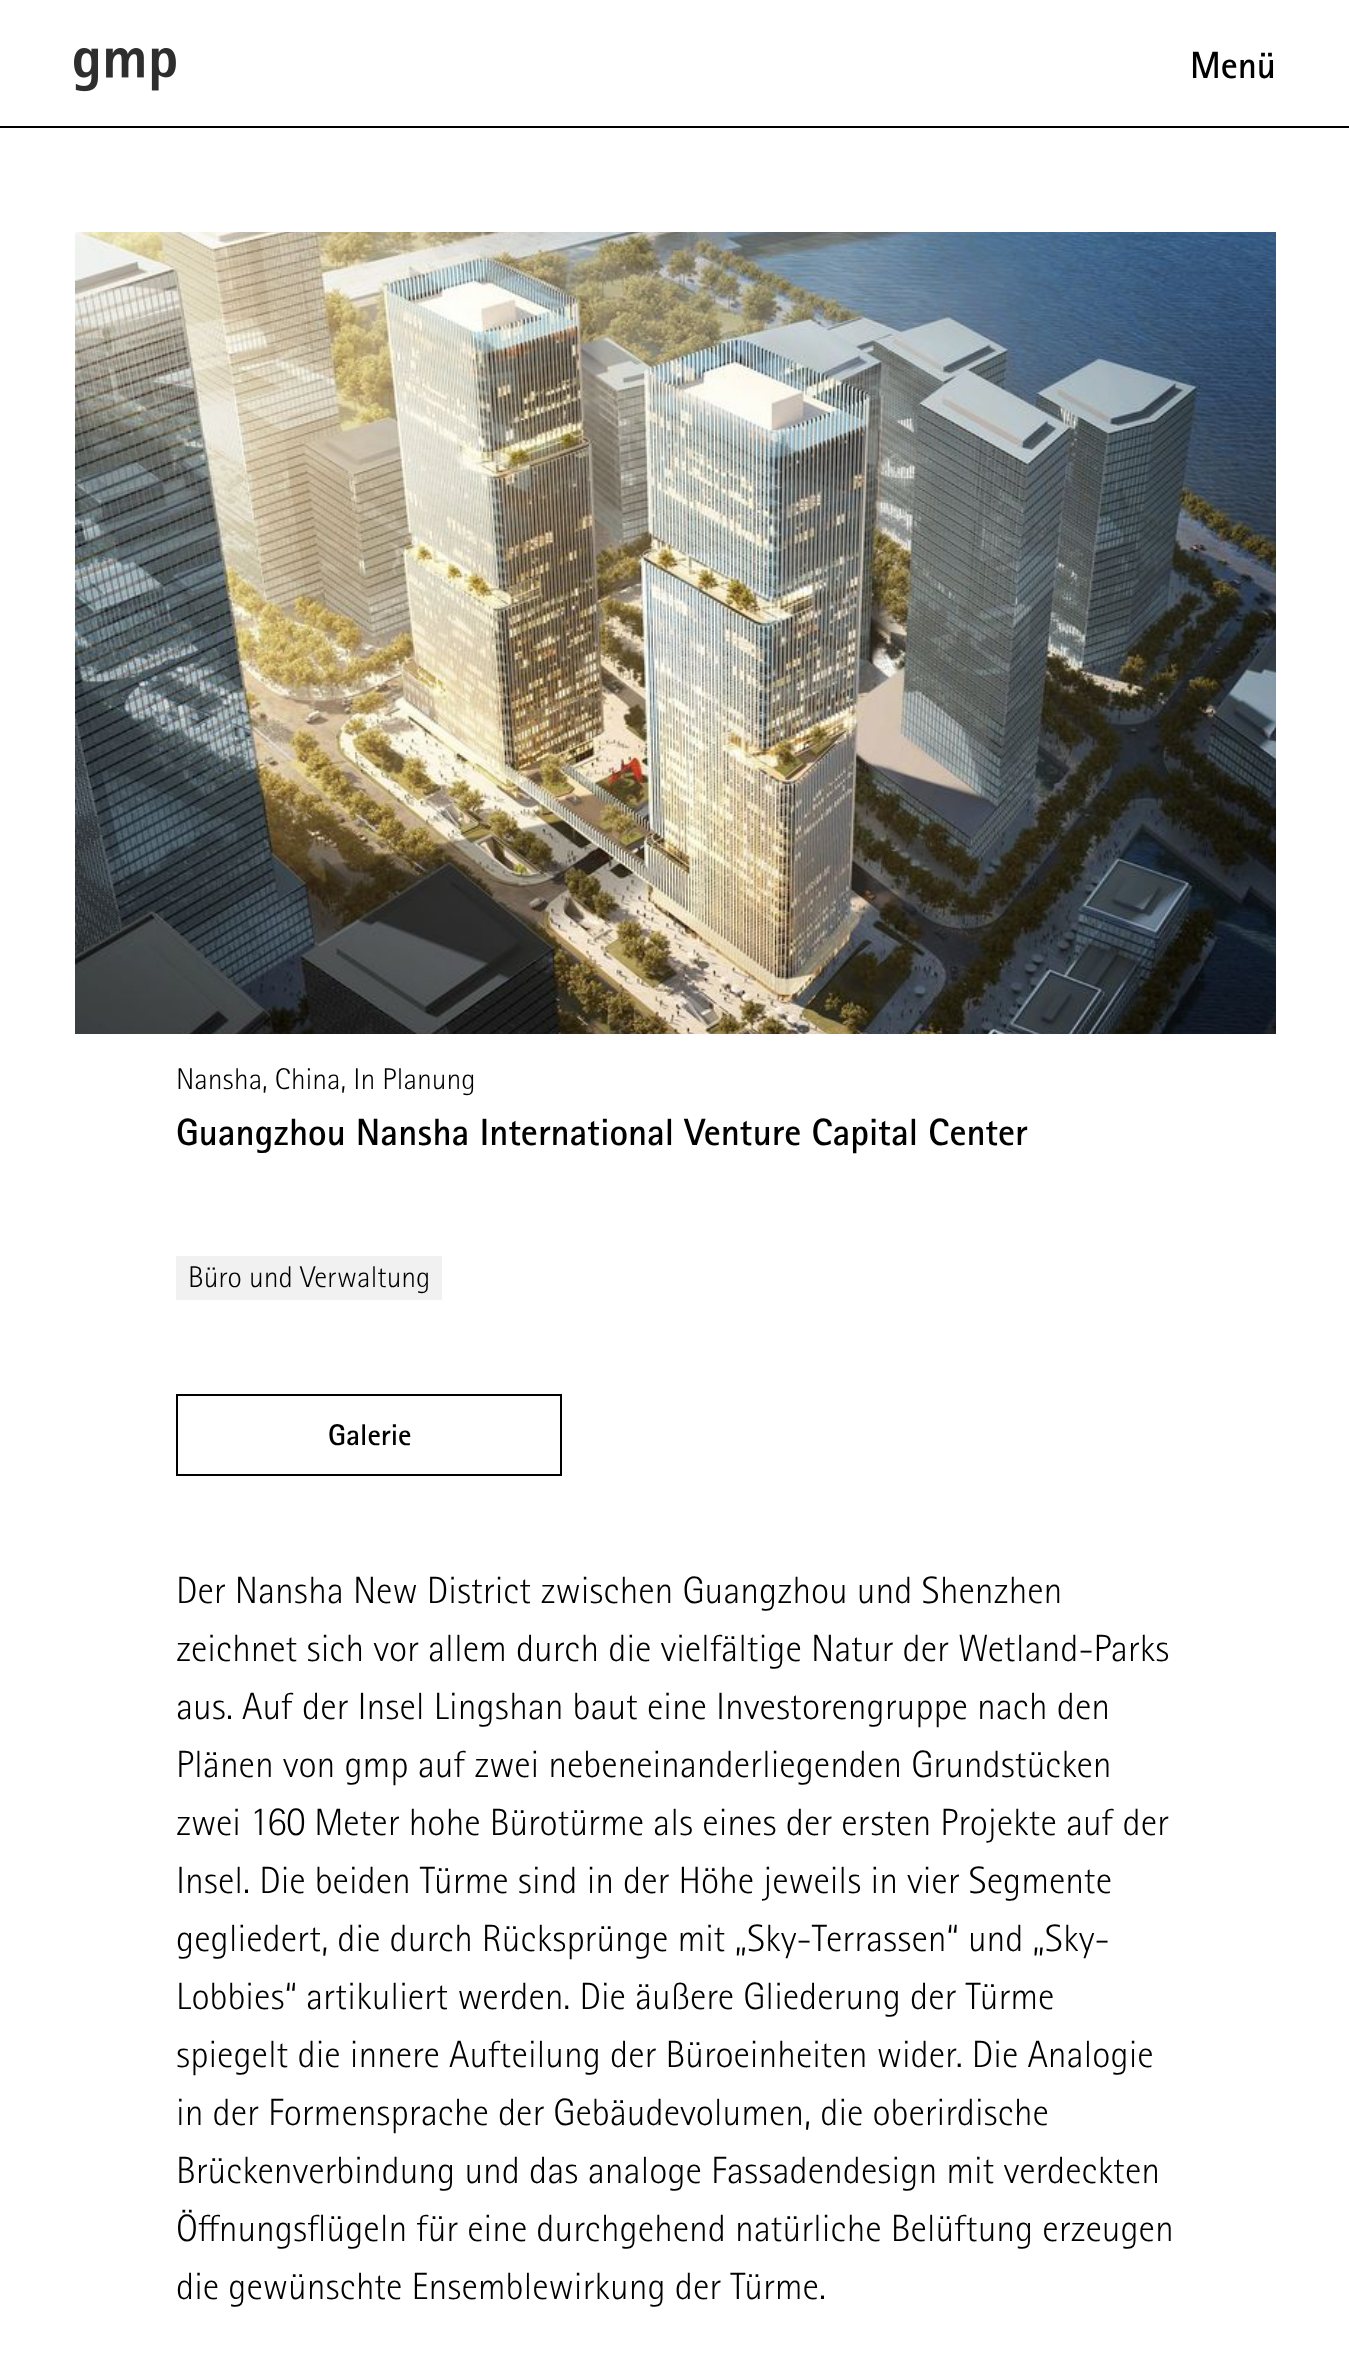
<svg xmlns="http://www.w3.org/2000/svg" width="1349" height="2375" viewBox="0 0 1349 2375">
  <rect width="100%" height="100%" fill="#fff"/>
  <path d="M0 126h1349v2H0z" fill="#000"/>
  <image x="74" y="48" width="102" height="44" href="img/1.png"/>
  <image x="75" y="232" width="1201" height="802" href="img/2.png"/>
  <path d="M176 1256h266v44H176z" fill="#f1f1f1"/>
  <path d="M177 1395h384v80H177z" fill="none" stroke="#000" stroke-width="2"/>
  <text x="1190" y="78" font-family="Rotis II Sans" font-size="38" font-weight="600" fill="#000">Menü</text>
  <text x="176" y="1089" font-family="Rotis II Sans" font-size="30" font-weight="300" fill="#000">Nansha, China, In Planung</text>
  <text x="176" y="1145" font-family="Rotis II Sans" font-size="38" font-weight="600" fill="#000">Guangzhou Nansha International Venture Capital Center</text>
  <text x="188" y="1287" font-family="Rotis II Sans" font-size="30" font-weight="300" fill="#000">Büro und Verwaltung</text>
  <text x="328" y="1445" font-family="Rotis II Sans" font-size="30" font-weight="600" fill="#000">Galerie</text>
  <g font-family="Rotis II Sans" font-size="38" font-weight="300" fill="#000">
    <text x="176" y="1603">Der Nansha New District zwischen Guangzhou und Shenzhen</text>
    <text x="176" y="1661">zeichnet sich vor allem durch die vielfältige Natur der Wetland-Parks</text>
    <text x="176" y="1719">aus. Auf der Insel Lingshan baut eine Investorengruppe nach den</text>
    <text x="176" y="1777">Plänen von gmp auf zwei nebeneinanderliegenden Grundstücken</text>
    <text x="176" y="1835">zwei 160 Meter hohe Bürotürme als eines der ersten Projekte auf der</text>
    <text x="176" y="1893">Insel. Die beiden Türme sind in der Höhe jeweils in vier Segmente</text>
    <text x="176" y="1951">gegliedert, die durch Rücksprünge mit „Sky-Terrassen“ und „Sky-</text>
    <text x="176" y="2009">Lobbies“ artikuliert werden. Die äußere Gliederung der Türme</text>
    <text x="176" y="2067">spiegelt die innere Aufteilung der Büroeinheiten wider. Die Analogie</text>
    <text x="176" y="2125">in der Formensprache der Gebäudevolumen, die oberirdische</text>
    <text x="176" y="2183">Brückenverbindung und das analoge Fassadendesign mit verdeckten</text>
    <text x="176" y="2241">Öffnungsflügeln für eine durchgehend natürliche Belüftung erzeugen</text>
    <text x="176" y="2299">die gewünschte Ensemblewirkung der Türme.</text>
  </g>
</svg>
